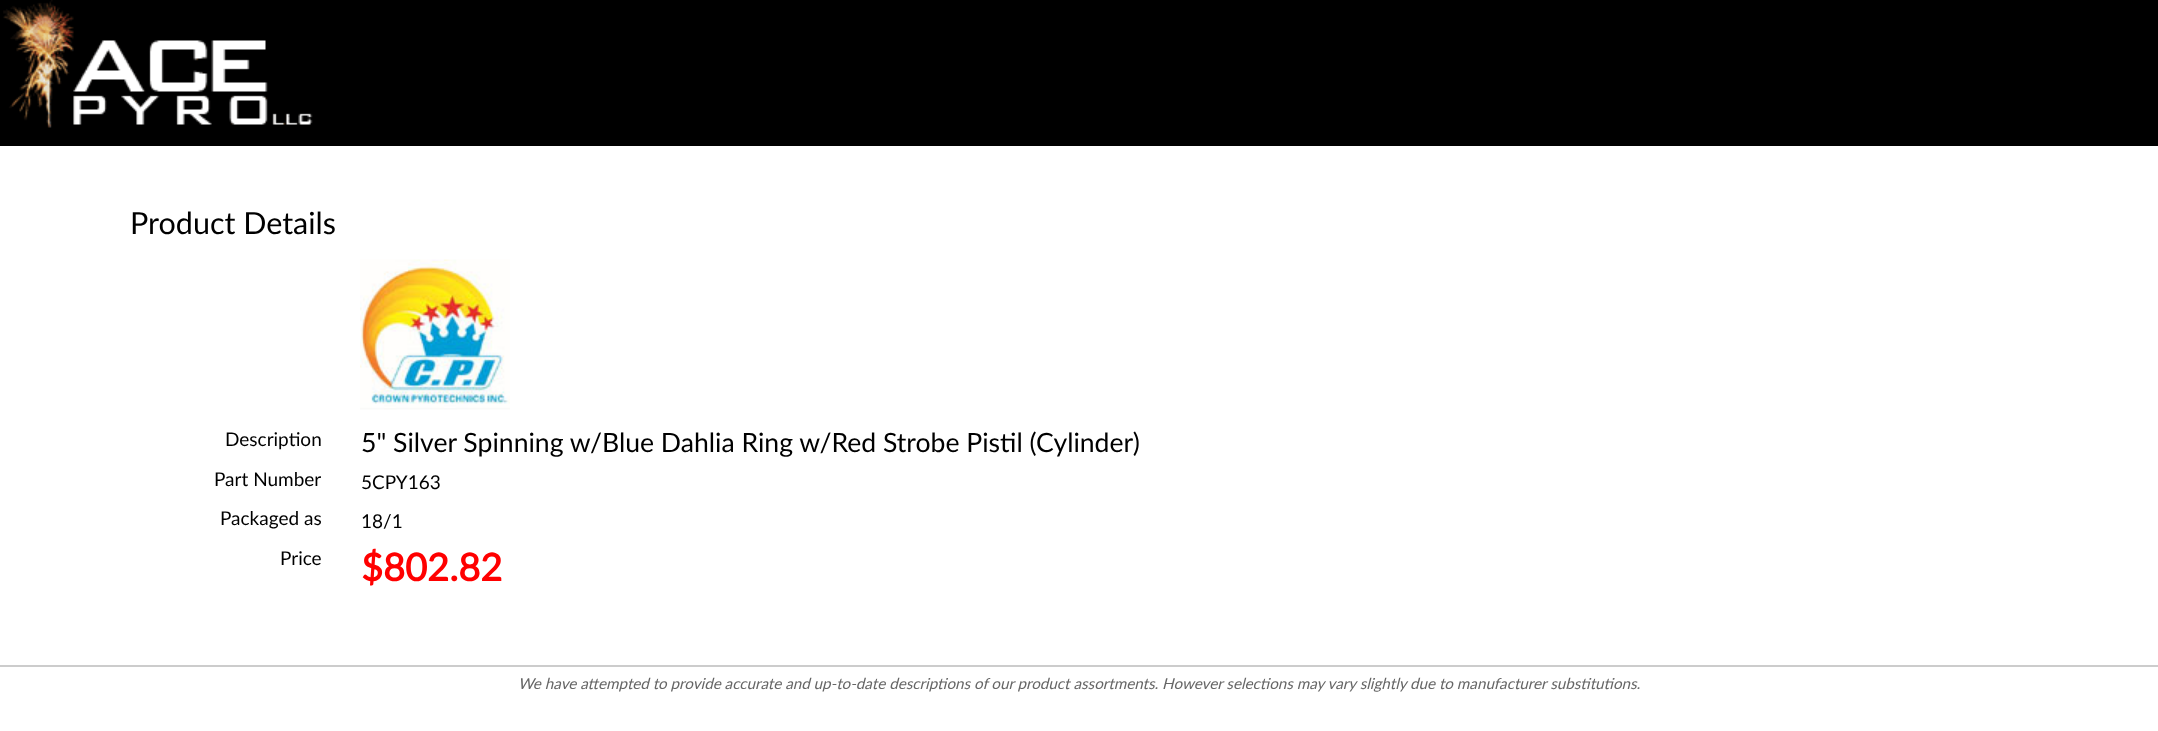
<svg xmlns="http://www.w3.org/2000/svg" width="2158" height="731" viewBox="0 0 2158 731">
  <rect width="100%" height="100%" fill="#fff"/>
  <path d="M0 0h2158v146H0z" fill="#000"/>
  <image x="3" y="0" width="310" height="128" href="img/1.png"/>
  <image x="360" y="259" width="150" height="151" href="img/2.png"/>
  <path d="M0 665h2158v2H0z" fill="#ccc"/>
  <text x="130" y="234" font-family="Lato" font-size="30.5" fill="#000">Product Details</text>
  <text x="225" y="446" font-family="Lato" font-size="19" fill="#000">Description</text>
  <text x="361" y="452" font-family="Lato" font-size="26.6" fill="#000">5" Silver Spinning w/Blue Dahlia Ring w/Red Strobe Pistil (Cylinder)</text>
  <g font-family="Lato" font-size="19" fill="#000">
    <text x="214" y="486">Part Number</text>
    <text x="361" y="489">5CPY163</text>
    <text x="220" y="525">Packaged as</text>
    <text x="361" y="528">18/1</text>
    <text x="280" y="565">Price</text>
  </g>
  <text x="361" y="581" font-family="Lato" font-size="38" font-weight="bold" fill="#f00">$802.82</text>
  <text x="518" y="689" font-family="Lato" font-size="15.2" font-style="italic" fill="#666">We have attempted to provide accurate and up-to-date descriptions of our product assortments. However selections may vary slightly due to manufacturer substitutions.</text>
</svg>
